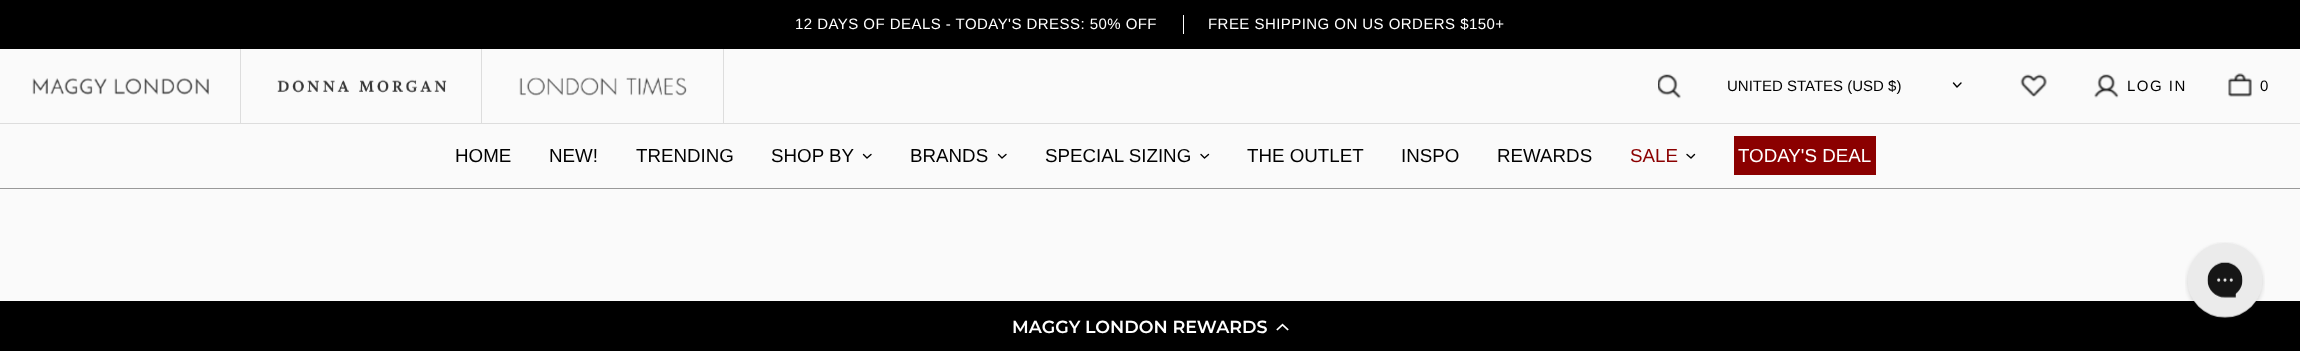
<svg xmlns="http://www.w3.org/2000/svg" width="2300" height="351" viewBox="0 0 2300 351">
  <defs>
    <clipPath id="clip1"><path d="M1726 79h222v15H1726z"/></clipPath>
  </defs>
  <rect width="100%" height="100%" fill="#fafafa"/>
  <path d="M0 0h2300v49H0z" fill="#000"/>
  <path d="M1183 15h1v19H1183z" fill="#fff"/>
  <path d="M0 188h2300v1H0z" fill="#999"/>
  <path d="M0 123h2300v1H0z" fill="#ddd"/>
  <path d="M240 49h1v75H240z" fill="#ddd"/>
  <image x="32" y="78" width="177" height="17" href="img/1.png"/>
  <path d="M481 49h1v75H481z" fill="#ddd"/>
  <image x="277" y="79" width="170" height="14" href="img/2.png"/>
  <path d="M723 49h1v75H723z" fill="#ddd"/>
  <image x="519" y="77" width="168" height="19" href="img/3.png"/>
  <image x="1658" y="74" width="23" height="25" href="img/4.png"/>
  <path d="M1961 83L1957 87L1953.5 83" fill="none" stroke="#000" stroke-width="1.4" stroke-linecap="round" stroke-linejoin="round"/>
  <image x="2020" y="74" width="27" height="23" href="img/5.png"/>
  <image x="2094" y="74" width="25" height="24" href="img/6.png"/>
  <image x="2228" y="73" width="24" height="24" href="img/7.png"/>
  <path d="M871 154.5L867 158L863.5 154.5" fill="none" stroke="#000" stroke-width="1.4" stroke-linecap="round" stroke-linejoin="round"/>
  <path d="M1006 154.5L1002 158L998.5 154.5" fill="none" stroke="#000" stroke-width="1.4" stroke-linecap="round" stroke-linejoin="round"/>
  <path d="M1208.5 154.5L1204.5 158L1201 154.5" fill="none" stroke="#000" stroke-width="1.4" stroke-linecap="round" stroke-linejoin="round"/>
  <path d="M1694.5 154.5L1691 158L1687 154.5" fill="none" stroke="#000" stroke-width="1.4" stroke-linecap="round" stroke-linejoin="round"/>
  <path d="M1734 136h142v39H1734z" fill="#8b0000"/>
  <path d="M0 301h2300v50H0z" fill="#000"/>
  <image x="2185" y="242" width="80" height="76" href="img/8.png"/>
  <image x="1276" y="323" width="13" height="8" href="img/9.png"/>
  <g font-family="Liberation Sans" font-size="15" letter-spacing="0.45" fill="#fff">
    <text x="795" y="29">12 DAYS OF DEALS - TODAY'S DRESS: 50% OFF</text>
    <text x="1208" y="29">FREE SHIPPING ON US ORDERS $150+</text>
  </g>
  <g clip-path="url(#clip1)">
    <text x="1727" y="91" font-family="Liberation Sans" font-size="15" fill="#000">UNITED STATES (USD $)</text>
  </g>
  <g font-family="Liberation Sans" font-size="15" letter-spacing="1.5" fill="#000">
    <text x="2127" y="91">LOG IN</text>
    <text x="2260" y="91">0</text>
  </g>
  <g font-family="Liberation Sans" font-size="18.75" fill="#000">
    <text x="455" y="162">HOME</text>
    <text x="549" y="162">NEW!</text>
    <text x="636" y="162">TRENDING</text>
    <text x="771" y="162">SHOP BY</text>
    <text x="910" y="162">BRANDS</text>
    <text x="1045" y="162">SPECIAL SIZING</text>
    <text x="1247" y="162">THE OUTLET</text>
    <text x="1401" y="162">INSPO</text>
    <text x="1497" y="162">REWARDS</text>
  </g>
  <text x="1630" y="162" font-family="Liberation Sans" font-size="18.75" fill="#8b0000">SALE</text>
  <text x="1738" y="162" font-family="Liberation Sans" font-size="18.75" fill="#fff">TODAY'S DEAL</text>
  <text x="1012" y="333" font-family="Montserrat" font-size="17.5" font-weight="100" fill="#fff">MAGGY LONDON REWARDS</text>
</svg>
